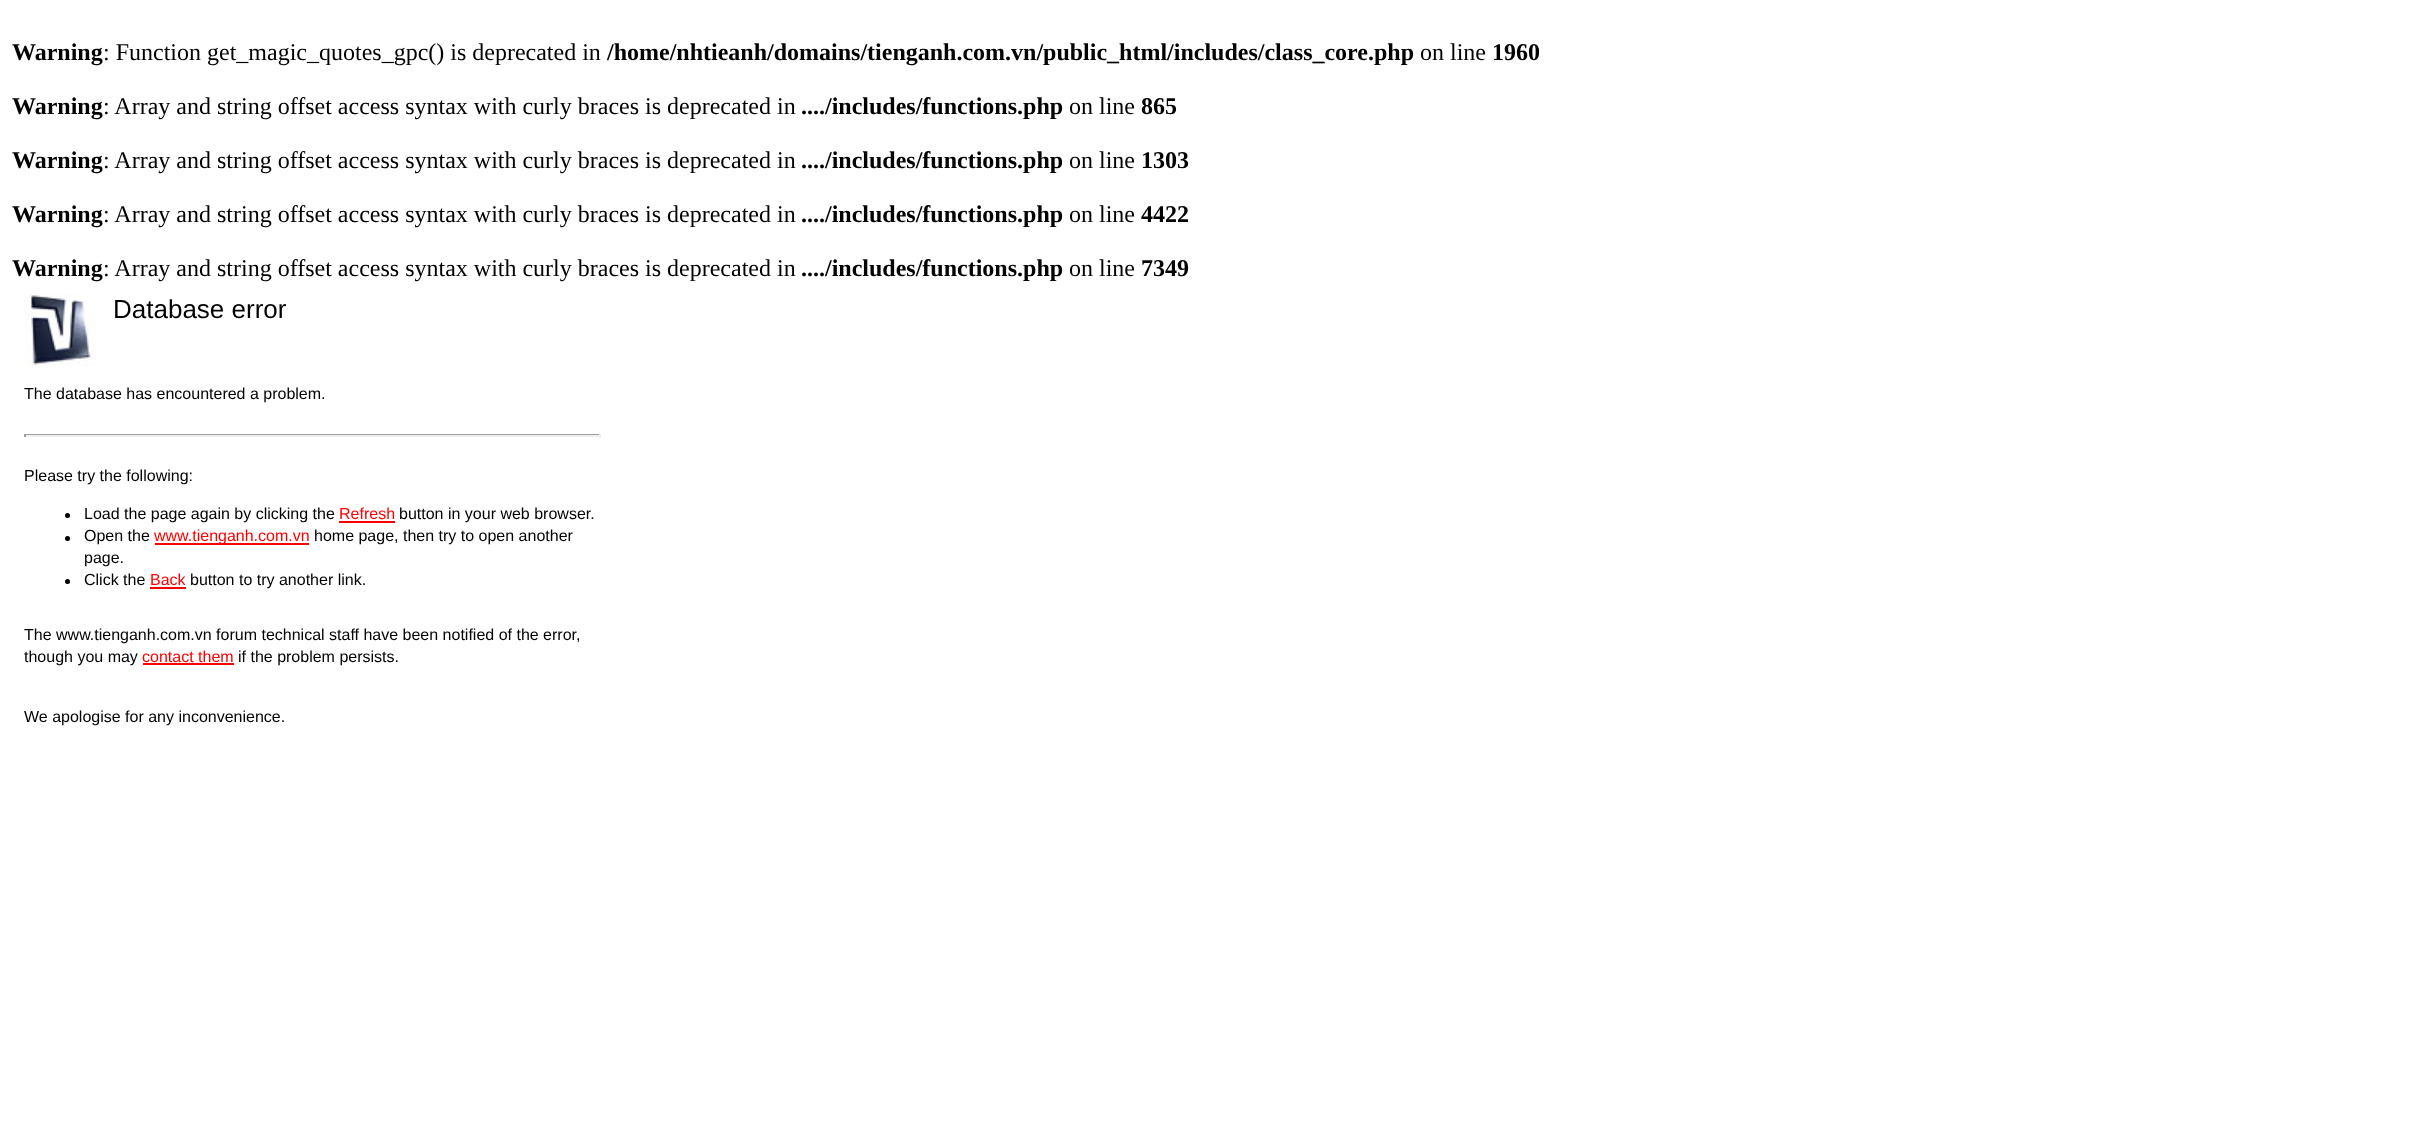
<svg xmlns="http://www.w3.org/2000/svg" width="2423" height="1133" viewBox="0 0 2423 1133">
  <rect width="100%" height="100%" fill="#fff"/>
  <image x="24" y="294" width="72" height="72" href="img/1.png"/>
  <path d="M24 434h576v1H24z" fill="#9f9f9f"/>
  <path d="M599 434h2v3H599z" fill="#eee"/>
  <path d="M24 435h576v2H24z" fill="#eee"/>
  <path d="M24 434h2v3H24z" fill="#9f9f9f"/>
  <circle cx="67.5" cy="515.5" r="2.5" fill="#000"/>
  <path d="M339 521h56v2H339z" fill="#f00"/>
  <circle cx="67.5" cy="538.5" r="2.5" fill="#000"/>
  <path d="M155 543h154v2H155z" fill="#f00"/>
  <circle cx="67.5" cy="581.5" r="2.5" fill="#000"/>
  <path d="M150 587h36v2H150z" fill="#f00"/>
  <path d="M143 663h91v2H143z" fill="#f00"/>
  <text x="12" y="60" font-family="Liberation Serif" font-size="24" font-weight="bold" fill="#000">Warning</text>
  <text x="103" y="60" font-family="Liberation Serif" font-size="24" fill="#000">: Function get_magic_quotes_gpc() is deprecated in</text>
  <text x="607" y="60" font-family="Liberation Serif" font-size="24" font-weight="bold" fill="#000">/home/nhtieanh/domains/tienganh.com.vn/public_html/includes/class_core.php</text>
  <text x="1420" y="60" font-family="Liberation Serif" font-size="24" fill="#000">on line</text>
  <g font-family="Liberation Serif" font-size="24" font-weight="bold" fill="#000">
    <text x="1492" y="60">1960</text>
    <text x="12" y="114">Warning</text>
  </g>
  <text x="103" y="114" font-family="Liberation Serif" font-size="24" fill="#000">: Array and string offset access syntax with curly braces is deprecated in</text>
  <text x="801" y="114" font-family="Liberation Serif" font-size="24" font-weight="bold" fill="#000">..../includes/functions.php</text>
  <text x="1069" y="114" font-family="Liberation Serif" font-size="24" fill="#000">on line</text>
  <g font-family="Liberation Serif" font-size="24" font-weight="bold" fill="#000">
    <text x="1141" y="114">865</text>
    <text x="12" y="168">Warning</text>
  </g>
  <text x="103" y="168" font-family="Liberation Serif" font-size="24" fill="#000">: Array and string offset access syntax with curly braces is deprecated in</text>
  <text x="801" y="168" font-family="Liberation Serif" font-size="24" font-weight="bold" fill="#000">..../includes/functions.php</text>
  <text x="1069" y="168" font-family="Liberation Serif" font-size="24" fill="#000">on line</text>
  <g font-family="Liberation Serif" font-size="24" font-weight="bold" fill="#000">
    <text x="1141" y="168">1303</text>
    <text x="12" y="222">Warning</text>
  </g>
  <text x="103" y="222" font-family="Liberation Serif" font-size="24" fill="#000">: Array and string offset access syntax with curly braces is deprecated in</text>
  <text x="801" y="222" font-family="Liberation Serif" font-size="24" font-weight="bold" fill="#000">..../includes/functions.php</text>
  <text x="1069" y="222" font-family="Liberation Serif" font-size="24" fill="#000">on line</text>
  <g font-family="Liberation Serif" font-size="24" font-weight="bold" fill="#000">
    <text x="1141" y="222">4422</text>
    <text x="12" y="276">Warning</text>
  </g>
  <text x="103" y="276" font-family="Liberation Serif" font-size="24" fill="#000">: Array and string offset access syntax with curly braces is deprecated in</text>
  <text x="801" y="276" font-family="Liberation Serif" font-size="24" font-weight="bold" fill="#000">..../includes/functions.php</text>
  <text x="1069" y="276" font-family="Liberation Serif" font-size="24" fill="#000">on line</text>
  <text x="1141" y="276" font-family="Liberation Serif" font-size="24" font-weight="bold" fill="#000">7349</text>
  <text x="113" y="318" font-family="Liberation Sans" font-size="26" fill="#000">Database error</text>
  <g font-family="Liberation Sans" font-size="16" fill="#000">
    <text x="24" y="399">The database has encountered a problem.</text>
    <text x="24" y="481">Please try the following:</text>
    <text x="84" y="519">Load the page again by clicking the</text>
  </g>
  <text x="339" y="519" font-family="Liberation Sans" font-size="16" fill="#f00">Refresh</text>
  <g font-family="Liberation Sans" font-size="16" fill="#000">
    <text x="399" y="519">button in your web browser.</text>
    <text x="84" y="541">Open the</text>
  </g>
  <text x="154" y="541" font-family="Liberation Sans" font-size="16" fill="#f00">www.tienganh.com.vn</text>
  <g font-family="Liberation Sans" font-size="16" fill="#000">
    <text x="314" y="541">home page, then try to open another</text>
    <text x="84" y="563">page.</text>
    <text x="84" y="585">Click the</text>
  </g>
  <text x="150" y="585" font-family="Liberation Sans" font-size="16" fill="#f00">Back</text>
  <g font-family="Liberation Sans" font-size="16" fill="#000">
    <text x="190" y="585">button to try another link.</text>
    <text x="24" y="640">The www.tienganh.com.vn forum technical staff have been notified of the error,</text>
    <text x="24" y="662">though you may</text>
  </g>
  <text x="142" y="662" font-family="Liberation Sans" font-size="16" fill="#f00">contact them</text>
  <g font-family="Liberation Sans" font-size="16" fill="#000">
    <text x="238" y="662">if the problem persists.</text>
    <text x="24" y="722">We apologise for any inconvenience.</text>
  </g>
</svg>
